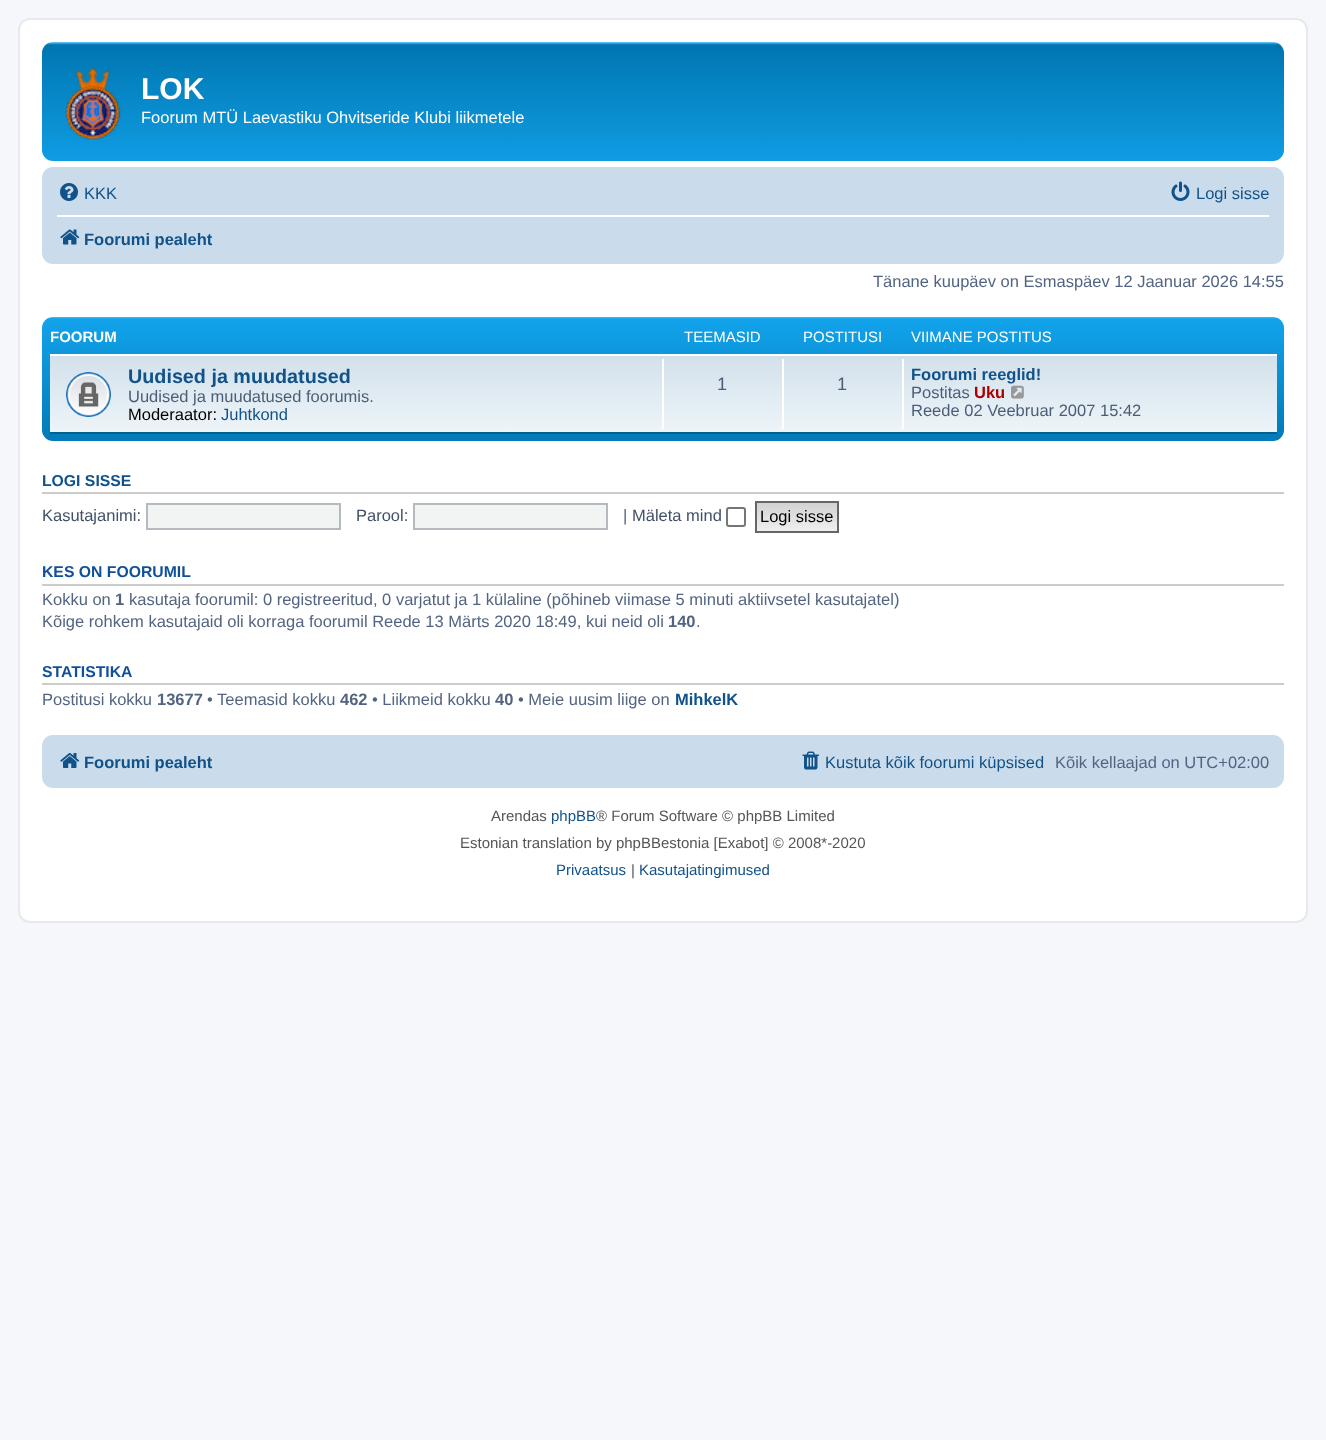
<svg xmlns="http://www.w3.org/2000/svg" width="1326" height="1440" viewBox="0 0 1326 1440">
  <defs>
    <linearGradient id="g1" gradientUnits="userSpaceOnUse" x1="663" y1="42" x2="663" y2="180"><stop offset="0" stop-color="#6aceff"/><stop offset="0.02" stop-color="#0076b1"/><stop offset="1" stop-color="#12a3eb"/></linearGradient>
    <linearGradient id="g2" gradientUnits="userSpaceOnUse" x1="663" y1="316" x2="663" y2="454"><stop offset="0" stop-color="#6aceff"/><stop offset="0.02" stop-color="#12a3eb"/><stop offset="1" stop-color="#0076b1"/></linearGradient>
    <linearGradient id="g3" gradientUnits="userSpaceOnUse" x1="663" y1="354" x2="663" y2="434"><stop offset="0" stop-color="#d2e0eb"/><stop offset="1" stop-color="#eef5f9"/></linearGradient>
    <linearGradient id="g4" gradientUnits="userSpaceOnUse" x1="797" y1="503" x2="797" y2="531"><stop offset="0" stop-color="#d2d2d2"/><stop offset="1" stop-color="#efefef"/></linearGradient>
  </defs>
  <rect width="100%" height="100%" fill="#f5f7fa"/>
  <rect x="19" y="19" width="1288" height="903" rx="11" fill="#fff" stroke="#e6e9ed" stroke-width="2"/>
  <rect x="42" y="42" width="1242" height="119" rx="11" fill="url(#g1)"/>
  <image x="65" y="67" width="56" height="73" href="img/1.png"/>
  <rect x="42" y="167" width="1242" height="97" rx="11" fill="#cadceb"/>
  <image x="60" y="183" width="18" height="18" href="img/2.png"/>
  <image x="1171" y="181" width="19" height="20" href="img/3.png"/>
  <path d="M57 215h1212v2H57z" fill="#fff"/>
  <image x="60" y="229" width="20" height="16" href="img/4.png"/>
  <rect x="42" y="317" width="1242" height="124" rx="11" fill="url(#g2)"/>
  <path d="M50 356h1227v76H50z" fill="url(#g3)"/>
  <path d="M50 354h1227v2H50z" fill="#fff"/>
  <path d="M50 432h1227v2H50z" fill="#00608f"/>
  <image x="66" y="372" width="45" height="45" href="img/5.png"/>
  <path d="M662 359h2v70H662z" fill="#fff"/>
  <path d="M782 359h2v70H782z" fill="#fff"/>
  <path d="M902 359h2v70H902z" fill="#fff"/>
  <image x="1011" y="385" width="13" height="14" href="img/6.png"/>
  <path d="M42 492h1242v2H42z" fill="#ccc"/>
  <path d="M147 504h193v25H147z" fill="#f2f3f3" stroke="#b4bac0" stroke-width="2"/>
  <path d="M414 504h193v25H414z" fill="#f2f3f3" stroke="#b4bac0" stroke-width="2"/>
  <rect x="727" y="508" width="18" height="18" rx="2" fill="none" stroke="#767676" stroke-width="2"/>
  <path d="M757 503h80v28H757z" fill="url(#g4)"/>
  <path d="M756 502h82v30H756z" fill="none" stroke="#666" stroke-width="2"/>
  <path d="M42 584h1242v2H42z" fill="#ccc"/>
  <path d="M42 683h1242v2H42z" fill="#ccc"/>
  <rect x="42" y="735" width="1242" height="53" rx="11" fill="#cadceb"/>
  <image x="60" y="753" width="20" height="15" href="img/7.png"/>
  <image x="802" y="751" width="17" height="19" href="img/8.png"/>
  <text x="141" y="99" font-family="Liberation Sans" font-size="30" font-weight="bold" fill="#fff">LOK</text>
  <text x="141" y="123" font-family="Liberation Sans" font-size="16.5" fill="#fff">Foorum MTÜ Laevastiku Ohvitseride Klubi liikmetele</text>
  <g font-family="Liberation Sans" font-size="16.5" fill="#105289">
    <text x="84" y="199">KKK</text>
    <text x="1196" y="199">Logi sisse</text>
  </g>
  <text x="84" y="245" font-family="Liberation Sans" font-size="16.5" font-weight="bold" fill="#105289">Foorumi pealeht</text>
  <text x="873" y="287" font-family="Liberation Sans" font-size="16.5" fill="#536482">Tänane kuupäev on Esmaspäev 12 Jaanuar 2026 14:55</text>
  <text x="50" y="342" font-family="Liberation Sans" font-size="15" font-weight="bold" fill="#fff">FOORUM</text>
  <g font-family="Liberation Sans" font-size="15" fill="#fff">
    <text x="684" y="342">TEEMASID</text>
    <text x="803" y="342">POSTITUSI</text>
    <text x="911" y="342">VIIMANE POSTITUS</text>
  </g>
  <text x="128" y="383" font-family="Liberation Sans" font-size="19.75" font-weight="bold" fill="#105289">Uudised ja muudatused</text>
  <text x="128" y="402" font-family="Liberation Sans" font-size="16.5" fill="#4c5d77">Uudised ja muudatused foorumis.</text>
  <text x="128" y="420" font-family="Liberation Sans" font-size="16.5" fill="#000">Moderaator:</text>
  <text x="221" y="420" font-family="Liberation Sans" font-size="16.5" fill="#105289">Juhtkond</text>
  <g font-family="Liberation Sans" font-size="18" fill="#4c5d77">
    <text x="717" y="390">1</text>
    <text x="837" y="390">1</text>
  </g>
  <text x="911" y="380" font-family="Liberation Sans" font-size="16.5" font-weight="bold" fill="#105289">Foorumi reeglid!</text>
  <text x="911" y="398" font-family="Liberation Sans" font-size="16.5" fill="#4c5d77">Postitas</text>
  <text x="974" y="398" font-family="Liberation Sans" font-size="16.5" font-weight="bold" fill="#a00">Uku</text>
  <text x="911" y="416" font-family="Liberation Sans" font-size="16.5" fill="#4c5d77">Reede 02 Veebruar 2007 15:42</text>
  <text x="42" y="486" font-family="Liberation Sans" font-size="15.75" font-weight="bold" fill="#105289">LOGI SISSE</text>
  <g font-family="Liberation Sans" font-size="16.5" fill="#425067">
    <text x="42" y="521">Kasutajanimi:</text>
    <text x="356" y="521">Parool:</text>
  </g>
  <text x="623" y="521" font-family="Liberation Sans" font-size="16.5" fill="#536482">|</text>
  <text x="632" y="521" font-family="Liberation Sans" font-size="16.5" fill="#425067">Mäleta mind</text>
  <text x="760" y="522" font-family="Liberation Sans" font-size="16.5" fill="#000">Logi sisse</text>
  <text x="42" y="577" font-family="Liberation Sans" font-size="15.75" font-weight="bold" fill="#115098">KES ON FOORUMIL</text>
  <text x="42" y="605" font-family="Liberation Sans" font-size="16.5" fill="#536482">Kokku on</text>
  <text x="115" y="605" font-family="Liberation Sans" font-size="16.5" font-weight="bold" fill="#536482">1</text>
  <g font-family="Liberation Sans" font-size="16.5" fill="#536482">
    <text x="129" y="605">kasutaja foorumil: 0 registreeritud, 0 varjatut ja 1 külaline (põhineb viimase 5 minuti aktiivsetel kasutajatel)</text>
    <text x="42" y="627">Kõige rohkem kasutajaid oli korraga foorumil Reede 13 Märts 2020 18:49, kui neid oli</text>
  </g>
  <text x="668" y="627" font-family="Liberation Sans" font-size="16.5" font-weight="bold" fill="#536482">140</text>
  <text x="696" y="627" font-family="Liberation Sans" font-size="16.5" fill="#536482">.</text>
  <text x="42" y="677" font-family="Liberation Sans" font-size="15.75" font-weight="bold" fill="#115098">STATISTIKA</text>
  <text x="42" y="705" font-family="Liberation Sans" font-size="16.5" fill="#536482">Postitusi kokku</text>
  <text x="157" y="705" font-family="Liberation Sans" font-size="16.5" font-weight="bold" fill="#536482">13677</text>
  <text x="207" y="705" font-family="Liberation Sans" font-size="16.5" fill="#536482">• Teemasid kokku</text>
  <text x="340" y="705" font-family="Liberation Sans" font-size="16.5" font-weight="bold" fill="#536482">462</text>
  <text x="372" y="705" font-family="Liberation Sans" font-size="16.5" fill="#536482">• Liikmeid kokku</text>
  <text x="495" y="705" font-family="Liberation Sans" font-size="16.5" font-weight="bold" fill="#536482">40</text>
  <text x="518" y="705" font-family="Liberation Sans" font-size="16.5" fill="#536482">• Meie uusim liige on</text>
  <g font-family="Liberation Sans" font-size="16.5" font-weight="bold" fill="#105289">
    <text x="675" y="705">MihkelK</text>
    <text x="84" y="768">Foorumi pealeht</text>
  </g>
  <text x="825" y="768" font-family="Liberation Sans" font-size="16.5" fill="#105289">Kustuta kõik foorumi küpsised</text>
  <text x="1055" y="768" font-family="Liberation Sans" font-size="16.5" fill="#536482">Kõik kellaajad on UTC+02:00</text>
  <text x="491" y="821" font-family="Liberation Sans" font-size="15" fill="#555">Arendas</text>
  <text x="551" y="821" font-family="Liberation Sans" font-size="15" fill="#105289">phpBB</text>
  <g font-family="Liberation Sans" font-size="15" fill="#555">
    <text x="596" y="821">® Forum Software © phpBB Limited</text>
    <text x="460" y="848">Estonian translation by phpBBestonia [Exabot] © 2008*-2020</text>
  </g>
  <text x="556" y="875" font-family="Liberation Sans" font-size="15" fill="#105289">Privaatsus</text>
  <text x="631" y="875" font-family="Liberation Sans" font-size="15" fill="#555">|</text>
  <text x="639" y="875" font-family="Liberation Sans" font-size="15" fill="#105289">Kasutajatingimused</text>
</svg>
